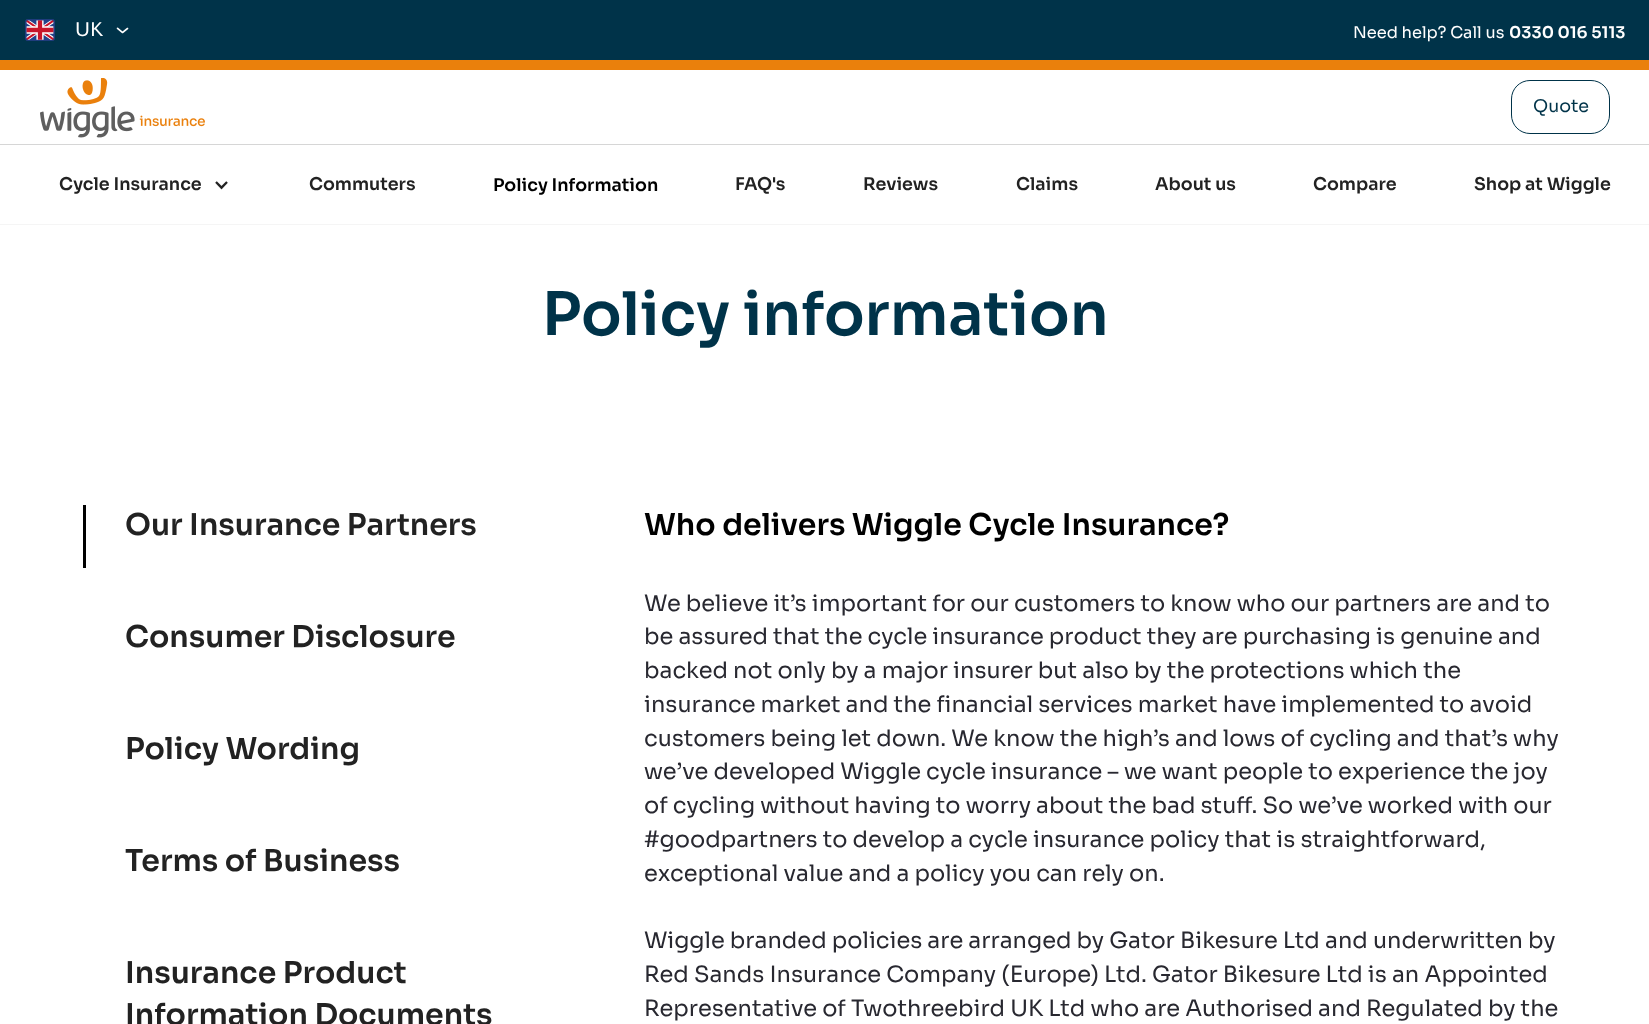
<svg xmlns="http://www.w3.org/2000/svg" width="1649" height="1024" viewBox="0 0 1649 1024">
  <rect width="100%" height="100%" fill="#fff"/>
  <path d="M0 0h1649v60H0z" fill="#003349"/>
  <image x="25" y="19" width="30" height="22" href="img/1.png"/>
  <image x="116" y="27" width="13" height="7" href="img/2.png"/>
  <path d="M0 60h1649v10H0z" fill="#ea800c"/>
  <path d="M0 144h1649v1H0z" fill="#d6d6d6"/>
  <image x="40" y="78" width="165" height="60" href="img/3.png"/>
  <rect x="1511.5" y="80.5" width="98" height="53" rx="18.5" fill="none" stroke="#003349"/>
  <path d="M0 224h1649v1H0z" fill="#f5f5f5"/>
  <image x="215" y="181" width="13" height="9" href="img/4.png"/>
  <path d="M83 505h3v63H83z" fill="#000"/>
  <text x="75" y="36" font-family="Sora" font-size="19" fill="#fff">UK</text>
  <text x="1353" y="38" font-family="Sora" font-size="16.25" fill="#fff">Need help? Call us</text>
  <text x="1509" y="38" font-family="Sora" font-size="16.25" font-weight="600" fill="#fff">0330 016 5113</text>
  <text x="1533" y="112" font-family="Sora" font-size="17.5" fill="#003349">Quote</text>
  <g font-family="Sora" font-size="17.5" font-weight="600" fill="#222">
    <text x="59" y="190">Cycle Insurance</text>
    <text x="309" y="190">Commuters</text>
  </g>
  <text x="493" y="191" font-family="Sora" font-size="17.5" font-weight="600" fill="#000">Policy Information</text>
  <g font-family="Sora" font-size="17.5" font-weight="600" fill="#222">
    <text x="735" y="190">FAQ's</text>
    <text x="863" y="190">Reviews</text>
    <text x="1016" y="190">Claims</text>
    <text x="1155" y="190">About us</text>
    <text x="1313" y="190">Compare</text>
    <text x="1474" y="190">Shop at Wiggle</text>
  </g>
  <text x="542" y="335" font-family="Sora" font-size="60" font-weight="600" fill="#003349">Policy information</text>
  <g font-family="Sora" font-size="30" font-weight="600" fill="#222">
    <text x="125" y="535">Our Insurance Partners</text>
    <text x="125" y="647">Consumer Disclosure</text>
    <text x="125" y="759">Policy Wording</text>
    <text x="125" y="871">Terms of Business</text>
    <text x="125" y="983">Insurance Product</text>
    <text x="125" y="1025">Information Documents</text>
  </g>
  <text x="644" y="535" font-family="Sora" font-size="30" font-weight="600" fill="#000">Who delivers Wiggle Cycle Insurance?</text>
  <g font-family="Sora" font-size="22.5" fill="#282830">
    <text x="644" y="611">We believe it’s important for our customers to know who our partners are and to</text>
    <text x="644" y="644">be assured that the cycle insurance product they are purchasing is genuine and</text>
    <text x="644" y="678">backed not only by a major insurer but also by the protections which the</text>
    <text x="644" y="712">insurance market and the financial services market have implemented to avoid</text>
    <text x="644" y="746">customers being let down. We know the high’s and lows of cycling and that’s why</text>
    <text x="644" y="779">we’ve developed Wiggle cycle insurance – we want people to experience the joy</text>
    <text x="644" y="813">of cycling without having to worry about the bad stuff. So we’ve worked with our</text>
    <text x="644" y="847">#goodpartners to develop a cycle insurance policy that is straightforward,</text>
    <text x="644" y="881">exceptional value and a policy you can rely on.</text>
    <text x="644" y="948">Wiggle branded policies are arranged by Gator Bikesure Ltd and underwritten by</text>
    <text x="644" y="982">Red Sands Insurance Company (Europe) Ltd. Gator Bikesure Ltd is an Appointed</text>
    <text x="644" y="1016">Representative of Twothreebird UK Ltd who are Authorised and Regulated by the</text>
  </g>
</svg>
